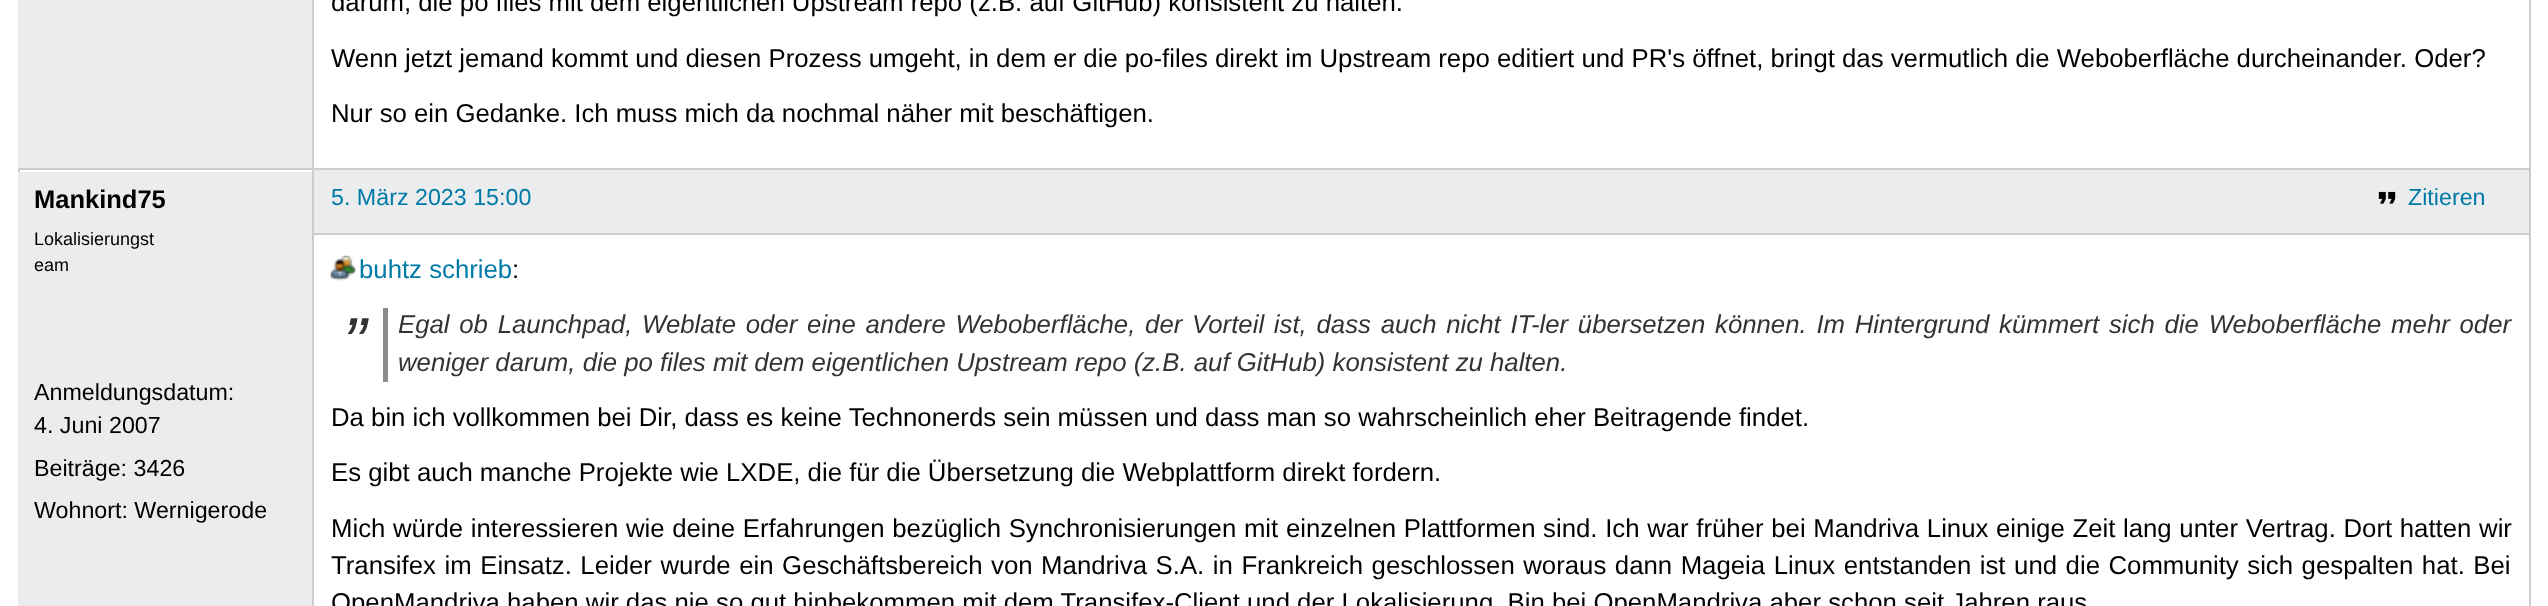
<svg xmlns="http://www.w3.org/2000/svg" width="2548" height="606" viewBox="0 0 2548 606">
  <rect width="100%" height="100%" fill="#fff"/>
  <path d="M2529 0h2v606H2529z" fill="#ccc"/>
  <path d="M18 170h2v2H18z" fill="#ccc"/>
  <path d="M18 0h294v168H18z" fill="#eaecee"/>
  <path d="M18 168h2513v2H18z" fill="#ccc"/>
  <path d="M313 233h2216v2H313z" fill="#ccc"/>
  <path d="M312 0h2v606H312z" fill="#ccc"/>
  <path d="M18 172h294v434H18z" fill="#eaecee"/>
  <path d="M314 170h2215v63H314z" fill="#eaecee"/>
  <image x="2378" y="191" width="18" height="13" href="img/1.png"/>
  <image x="330" y="255" width="26" height="26" href="img/2.png"/>
  <path d="M383 308h5v74H383z" fill="#8c8c8c"/>
  <g font-family="Liberation Sans" font-size="25.75" fill="#000">
    <text x="331" y="11">darum, die po files mit dem eigentlichen Upstream repo (z.B. auf GitHub) konsistent zu halten.</text>
    <text x="331" y="67">Wenn jetzt jemand kommt und diesen Prozess umgeht, in dem er die po-files direkt im Upstream repo editiert und PR's öffnet, bringt das vermutlich die Weboberfläche durcheinander. Oder?</text>
    <text x="331" y="122">Nur so ein Gedanke. Ich muss mich da nochmal näher mit beschäftigen.</text>
  </g>
  <text x="34" y="208" font-family="Liberation Sans" font-size="25.5" font-weight="bold" fill="#000">Mankind75</text>
  <g font-family="Liberation Sans" font-size="18" fill="#000">
    <text x="34" y="245">Lokalisierungst</text>
    <text x="34" y="271">eam</text>
  </g>
  <g font-family="Liberation Sans" font-size="23.25" fill="#000">
    <text x="34" y="400">Anmeldungsdatum:</text>
    <text x="34" y="433">4. Juni 2007</text>
    <text x="34" y="476">Beiträge: 3426</text>
    <text x="34" y="518">Wohnort: Wernigerode</text>
  </g>
  <g font-family="Liberation Sans" font-size="23.25" fill="#007aa6">
    <text x="331" y="205">5. März 2023 15:00</text>
    <text x="2408" y="205">Zitieren</text>
  </g>
  <text x="359" y="278" font-family="Liberation Sans" font-size="25.75" fill="#007aa6">buhtz schrieb</text>
  <text x="512" y="278" font-family="Liberation Sans" font-size="25.75" fill="#000">:</text>
  <text x="350" y="325" font-family="Liberation Sans" font-size="70" font-style="italic" fill="#333">„</text>
  <g font-family="Liberation Sans" font-size="25.75" font-style="italic" fill="#333">
    <text x="398" y="333" word-spacing="2.6">Egal ob Launchpad, Weblate oder eine andere Weboberfläche, der Vorteil ist, dass auch nicht IT-ler übersetzen können. Im Hintergrund kümmert sich die Weboberfläche mehr oder</text>
    <text x="398" y="371">weniger darum, die po files mit dem eigentlichen Upstream repo (z.B. auf GitHub) konsistent zu halten.</text>
  </g>
  <g font-family="Liberation Sans" font-size="25.75" fill="#000">
    <text x="331" y="426">Da bin ich vollkommen bei Dir, dass es keine Technonerds sein müssen und dass man so wahrscheinlich eher Beitragende findet.</text>
    <text x="331" y="481">Es gibt auch manche Projekte wie LXDE, die für die Übersetzung die Webplattform direkt fordern.</text>
    <text x="331" y="537" word-spacing="0.5">Mich würde interessieren wie deine Erfahrungen bezüglich Synchronisierungen mit einzelnen Plattformen sind. Ich war früher bei Mandriva Linux einige Zeit lang unter Vertrag. Dort hatten wir</text>
    <text x="331" y="574" word-spacing="1.4">Transifex im Einsatz. Leider wurde ein Geschäftsbereich von Mandriva S.A. in Frankreich geschlossen woraus dann Mageia Linux entstanden ist und die Community sich gespalten hat. Bei</text>
    <text x="331" y="611">OpenMandriva haben wir das nie so gut hinbekommen mit dem Transifex-Client und der Lokalisierung. Bin bei OpenMandriva aber schon seit Jahren raus</text>
  </g>
</svg>
